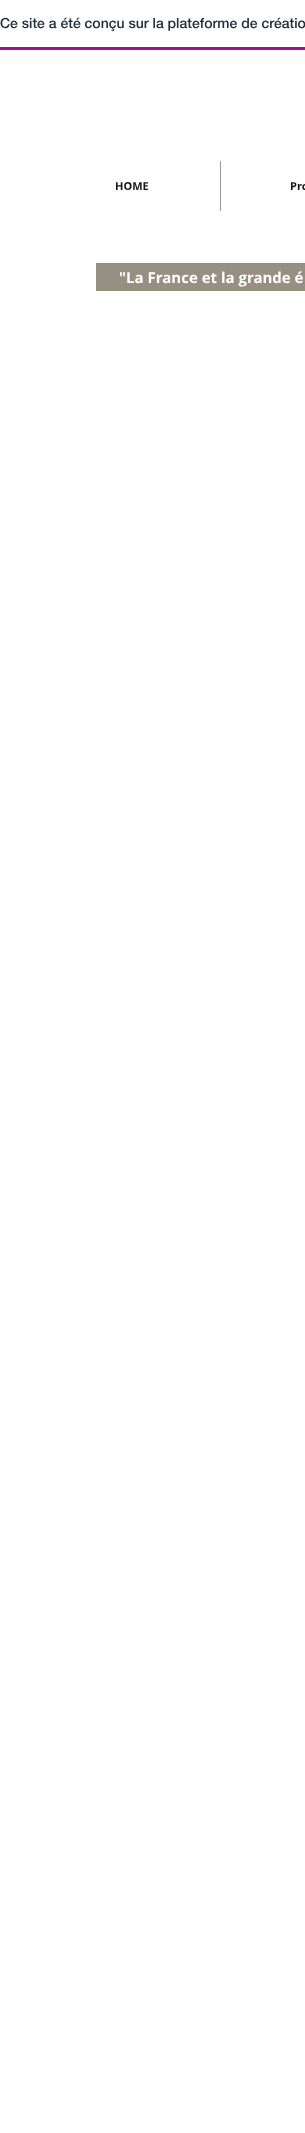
<svg xmlns="http://www.w3.org/2000/svg" width="305" height="2133" viewBox="0 0 305 2133">
  <rect width="100%" height="100%" fill="#fff"/>
  <path d="M0 47h305v3H0z" fill="#a0138e"/>
  <path d="M220 161h1v50H220z" fill="#999"/>
  <path d="M96 263h209v28H96z" fill="#969083"/>
  <text x="0" y="28" font-family="'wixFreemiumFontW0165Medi'" font-size="14" font-weight="500" fill="#20303c">Ce site a été conçu sur la plateforme de créatio</text>
  <g font-family="Open Sans" font-size="11" font-weight="bold" fill="#181717">
    <text x="115" y="190">HOME</text>
    <text x="290" y="190">Pro</text>
  </g>
  <text x="119" y="283" font-family="Open Sans" font-size="15" font-weight="bold" fill="#fff">"La France et la grande é</text>
</svg>
